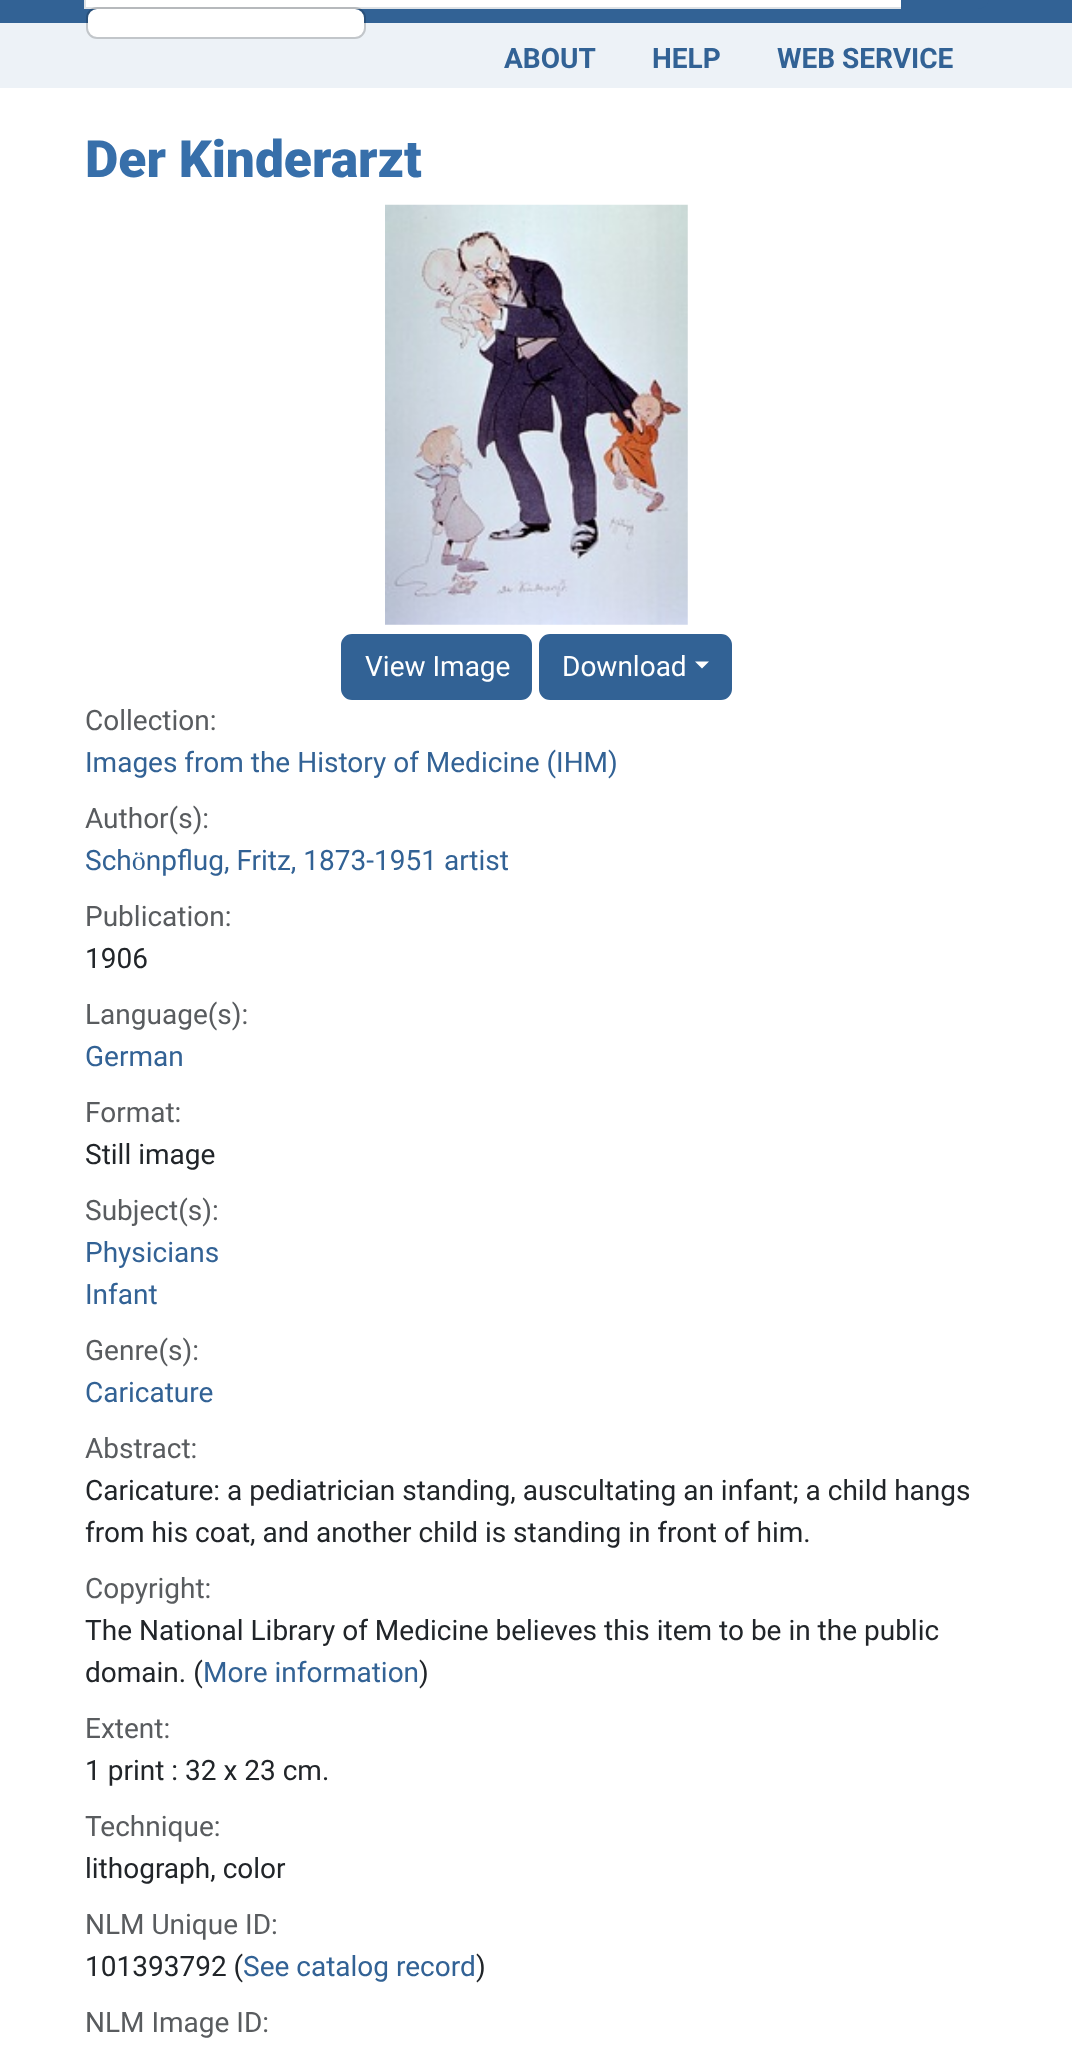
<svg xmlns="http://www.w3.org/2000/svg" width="1072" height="2054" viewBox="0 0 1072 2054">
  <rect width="100%" height="100%" fill="#fff"/>
  <path d="M0 0h1072v23H0z" fill="#326295"/>
  <path d="M85 -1h817v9H85z" fill="#fff" stroke="#dee2e6" stroke-width="2"/>
  <path d="M0 23h1072v65H0z" fill="#edf2f7"/>
  <rect x="88" y="9" width="276" height="28" rx="9" fill="#fff"/>
  <rect x="87" y="8" width="278" height="30" rx="10" fill="none" stroke="#0000002e" stroke-width="2"/>
  <path d="M901-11H978C984-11 989-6 989 0V-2C989 4 984 9 978 9H901Z" fill="#326295"/>
  <image x="385" y="204" width="303" height="421" href="img/1.png"/>
  <rect x="342" y="635" width="189" height="64" rx="10" fill="#326295" stroke="#326295" stroke-width="2"/>
  <rect x="540" y="635" width="191" height="64" rx="10" fill="#326295" stroke="#326295" stroke-width="2"/>
  <path d="M695 661.5H709L702 668.5Z" fill="#fff"/>
  <g font-family="Roboto" font-size="28" font-weight="bold" fill="#326295">
    <text x="504" y="68">ABOUT</text>
    <text x="652" y="68">HELP</text>
    <text x="777" y="68">WEB SERVICE</text>
  </g>
  <text x="85" y="177" font-family="Roboto" font-size="51.5" font-weight="900" fill="#376faa">Der Kinderarzt</text>
  <g font-family="Roboto" font-size="28" fill="#fff">
    <text x="365" y="676">View Image</text>
    <text x="562" y="676">Download</text>
  </g>
  <text x="85" y="730" font-family="Roboto" font-size="28" fill="#595c5f">Collection:</text>
  <text x="85" y="772" font-family="Roboto" font-size="28" fill="#326295">Images from the History of Medicine (IHM)</text>
  <text x="85" y="828" font-family="Roboto" font-size="28" fill="#595c5f">Author(s):</text>
  <text x="85" y="870" font-family="Roboto" font-size="28" fill="#326295">Schönpflug, Fritz, 1873-1951 artist</text>
  <text x="85" y="926" font-family="Roboto" font-size="28" fill="#595c5f">Publication:</text>
  <text x="85" y="968" font-family="Roboto" font-size="28" fill="#212529">1906</text>
  <text x="85" y="1024" font-family="Roboto" font-size="28" fill="#595c5f">Language(s):</text>
  <text x="85" y="1066" font-family="Roboto" font-size="28" fill="#326295">German</text>
  <text x="85" y="1122" font-family="Roboto" font-size="28" fill="#595c5f">Format:</text>
  <text x="85" y="1164" font-family="Roboto" font-size="28" fill="#212529">Still image</text>
  <text x="85" y="1220" font-family="Roboto" font-size="28" fill="#595c5f">Subject(s):</text>
  <g font-family="Roboto" font-size="28" fill="#326295">
    <text x="85" y="1262">Physicians</text>
    <text x="85" y="1304">Infant</text>
  </g>
  <text x="85" y="1360" font-family="Roboto" font-size="28" fill="#595c5f">Genre(s):</text>
  <text x="85" y="1402" font-family="Roboto" font-size="28" fill="#326295">Caricature</text>
  <text x="85" y="1458" font-family="Roboto" font-size="28" fill="#595c5f">Abstract:</text>
  <g font-family="Roboto" font-size="28" fill="#212529">
    <text x="85" y="1500">Caricature: a pediatrician standing, auscultating an infant; a child hangs</text>
    <text x="85" y="1542">from his coat, and another child is standing in front of him.</text>
  </g>
  <text x="85" y="1598" font-family="Roboto" font-size="28" fill="#595c5f">Copyright:</text>
  <g font-family="Roboto" font-size="28" fill="#212529">
    <text x="85" y="1640">The National Library of Medicine believes this item to be in the public</text>
    <text x="85" y="1682">domain. (</text>
  </g>
  <text x="203" y="1682" font-family="Roboto" font-size="28" fill="#326295">More information</text>
  <text x="419" y="1682" font-family="Roboto" font-size="28" fill="#212529">)</text>
  <text x="85" y="1738" font-family="Roboto" font-size="28" fill="#595c5f">Extent:</text>
  <text x="85" y="1780" font-family="Roboto" font-size="28" fill="#212529">1 print : 32 x 23 cm.</text>
  <text x="85" y="1836" font-family="Roboto" font-size="28" fill="#595c5f">Technique:</text>
  <text x="85" y="1878" font-family="Roboto" font-size="28" fill="#212529">lithograph, color</text>
  <text x="85" y="1934" font-family="Roboto" font-size="28" fill="#595c5f">NLM Unique ID:</text>
  <text x="85" y="1976" font-family="Roboto" font-size="28" fill="#212529">101393792 (</text>
  <text x="243" y="1976" font-family="Roboto" font-size="28" fill="#326295">See catalog record</text>
  <text x="476" y="1976" font-family="Roboto" font-size="28" fill="#212529">)</text>
  <text x="85" y="2032" font-family="Roboto" font-size="28" fill="#595c5f">NLM Image ID:</text>
</svg>
